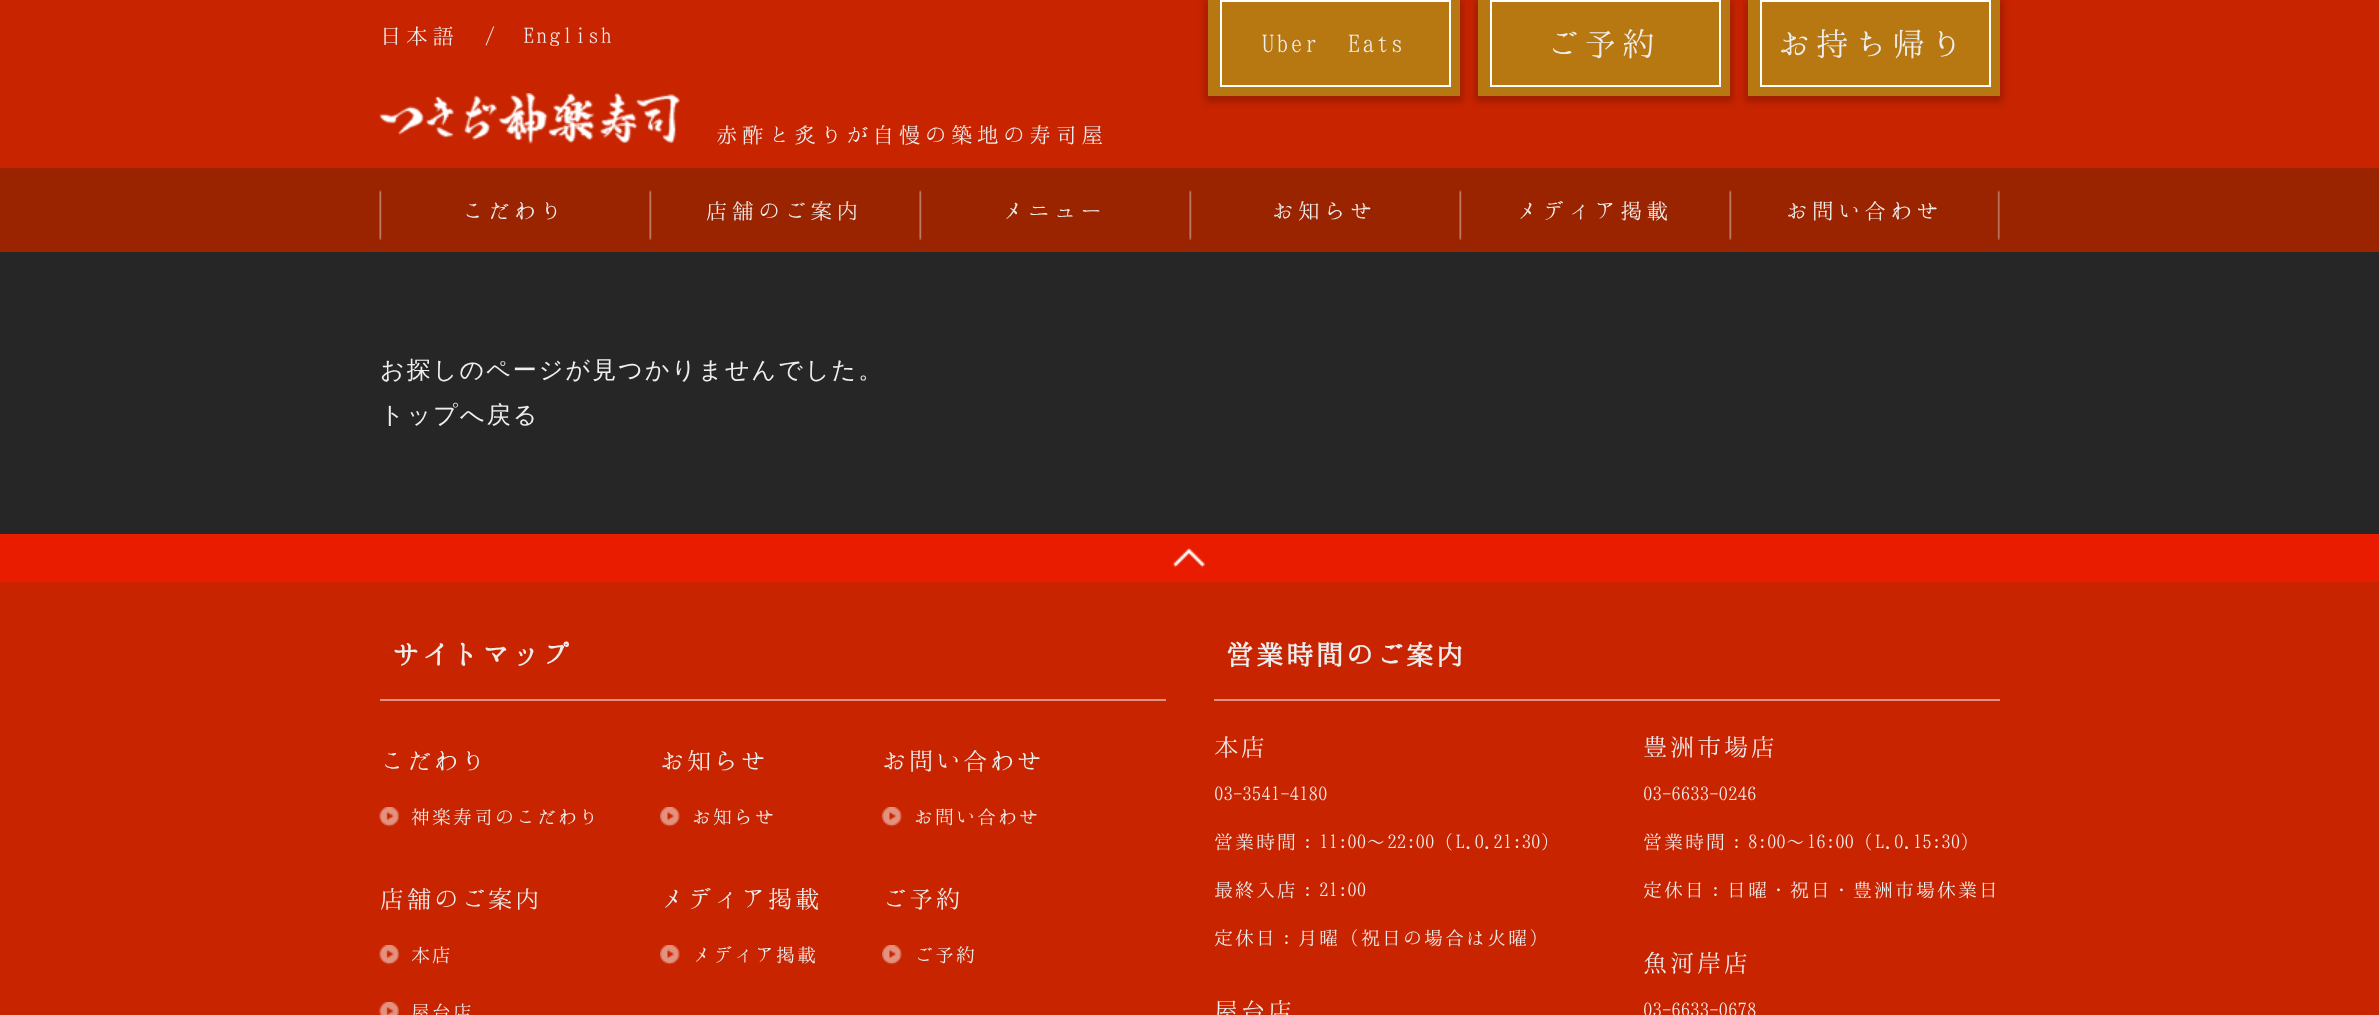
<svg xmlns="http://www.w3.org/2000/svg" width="2379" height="1015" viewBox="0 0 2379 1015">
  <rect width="100%" height="100%" fill="#262626"/>
  <path d="M0 0h2379v168H0z" fill="#c82400"/>
  <path d="M1205 0h258v102H1205z" fill="#00000033" filter="blur(3px)"/>
  <path d="M1208 0h252v96H1208z" fill="#b77711"/>
  <path d="M1221 1h229v85H1221z" fill="none" stroke="#fff" stroke-width="2"/>
  <path d="M1475 0h258v102H1475z" fill="#00000033" filter="blur(3px)"/>
  <path d="M1478 0h252v96H1478z" fill="#b77711"/>
  <path d="M1491 1h229v85H1491z" fill="none" stroke="#fff" stroke-width="2"/>
  <path d="M1745 0h258v102H1745z" fill="#00000033" filter="blur(3px)"/>
  <path d="M1748 0h252v96H1748z" fill="#b77711"/>
  <path d="M1761 1h229v85H1761z" fill="none" stroke="#fff" stroke-width="2"/>
  <image x="379" y="93" width="301" height="51" href="img/1.png"/>
  <path d="M0 168h2379v84H0z" fill="#9a2400"/>
  <image x="379" y="190" width="3" height="51" href="img/2.png"/>
  <image x="649" y="190" width="3" height="51" href="img/2.png"/>
  <image x="919" y="190" width="3" height="51" href="img/2.png"/>
  <image x="1189" y="190" width="3" height="51" href="img/2.png"/>
  <image x="1459" y="190" width="3" height="51" href="img/2.png"/>
  <image x="1729" y="190" width="271" height="51" href="img/3.png"/>
  <path d="M0 582h2379v433H0z" fill="#c82400"/>
  <path d="M0 534h2379v48H0z" fill="#ea1c00"/>
  <image x="1172" y="548" width="33" height="20" href="img/4.png"/>
  <path d="M380 699h786v2H380z" fill="#e49280"/>
  <image x="379" y="807" width="20" height="20" href="img/5.png"/>
  <image x="379" y="945" width="20" height="20" href="img/5.png"/>
  <image x="379" y="1002" width="20" height="13" href="img/6.png"/>
  <image x="660" y="807" width="20" height="20" href="img/7.png"/>
  <image x="660" y="945" width="20" height="20" href="img/7.png"/>
  <image x="882" y="807" width="20" height="20" href="img/7.png"/>
  <image x="882" y="945" width="20" height="20" href="img/7.png"/>
  <path d="M1214 699h786v2H1214z" fill="#e49280"/>
  <text x="380" y="44" font-family="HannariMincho" font-size="24" letter-spacing="2.1" fill="#eee">日本語 / English</text>
  <text x="1262" y="53" font-family="HannariMincho" font-size="27" letter-spacing="2.1" fill="#eee">Uber Eats</text>
  <g font-family="HannariMincho" font-size="36" letter-spacing="2.1" fill="#eee">
    <text x="1546" y="56">ご予約</text>
    <text x="1778" y="56">お持ち帰り</text>
  </g>
  <g font-family="HannariMincho" font-size="24" letter-spacing="2.1" fill="#eee">
    <text x="716" y="143">赤酢と炙りが自慢の築地の寿司屋</text>
    <text x="462" y="219">こだわり</text>
    <text x="706" y="219">店舗のご案内</text>
    <text x="1002" y="219">メニュー</text>
    <text x="1272" y="219">お知らせ</text>
    <text x="1516" y="219">メディア掲載</text>
    <text x="1786" y="219">お問い合わせ</text>
  </g>
  <g font-family="WenQuanYi Zen Hei" font-size="24" font-weight="500" letter-spacing="2.1" fill="#eee">
    <text x="380" y="378">お探しのページが見つかりませんでした。</text>
    <text x="380" y="423">トップへ戻る</text>
  </g>
  <text x="392" y="665" font-family="HannariMincho" font-size="30" font-weight="bold" fill="#eee">サイトマップ</text>
  <text x="380" y="770" font-family="HannariMincho" font-size="27" fill="#eee">こだわり</text>
  <text x="411" y="824" font-family="HannariMincho" font-size="21" fill="#eee">神楽寿司のこだわり</text>
  <text x="380" y="908" font-family="HannariMincho" font-size="27" fill="#eee">店舗のご案内</text>
  <g font-family="HannariMincho" font-size="21" fill="#eee">
    <text x="411" y="962">本店</text>
    <text x="411" y="1019">屋台店</text>
  </g>
  <text x="660" y="770" font-family="HannariMincho" font-size="27" fill="#eee">お知らせ</text>
  <text x="692" y="824" font-family="HannariMincho" font-size="21" fill="#eee">お知らせ</text>
  <text x="660" y="908" font-family="HannariMincho" font-size="27" fill="#eee">メディア掲載</text>
  <text x="692" y="962" font-family="HannariMincho" font-size="21" fill="#eee">メディア掲載</text>
  <text x="882" y="770" font-family="HannariMincho" font-size="27" fill="#eee">お問い合わせ</text>
  <text x="914" y="824" font-family="HannariMincho" font-size="21" fill="#eee">お問い合わせ</text>
  <text x="882" y="908" font-family="HannariMincho" font-size="27" fill="#eee">ご予約</text>
  <text x="914" y="962" font-family="HannariMincho" font-size="21" fill="#eee">ご予約</text>
  <text x="1226" y="665" font-family="HannariMincho" font-size="30" font-weight="bold" fill="#eee">営業時間のご案内</text>
  <text x="1214" y="756" font-family="HannariMincho" font-size="27" fill="#eee">本店</text>
  <g font-family="HannariMincho" font-size="21" fill="#eee">
    <text x="1214" y="801">03-3541-4180</text>
    <text x="1214" y="849">営業時間：11:00〜22:00（L.O.21:30）</text>
    <text x="1214" y="897">最終入店：21:00</text>
    <text x="1214" y="945">定休日：月曜（祝日の場合は火曜）</text>
  </g>
  <g font-family="HannariMincho" font-size="27" fill="#eee">
    <text x="1214" y="1020">屋台店</text>
    <text x="1643" y="756">豊洲市場店</text>
  </g>
  <g font-family="HannariMincho" font-size="21" fill="#eee">
    <text x="1643" y="801">03-6633-0246</text>
    <text x="1643" y="849">営業時間：8:00〜16:00（L.O.15:30）</text>
    <text x="1643" y="897">定休日：日曜・祝日・豊洲市場休業日</text>
  </g>
  <text x="1643" y="972" font-family="HannariMincho" font-size="27" fill="#eee">魚河岸店</text>
  <text x="1643" y="1017" font-family="HannariMincho" font-size="21" fill="#eee">03-6633-0678</text>
</svg>
